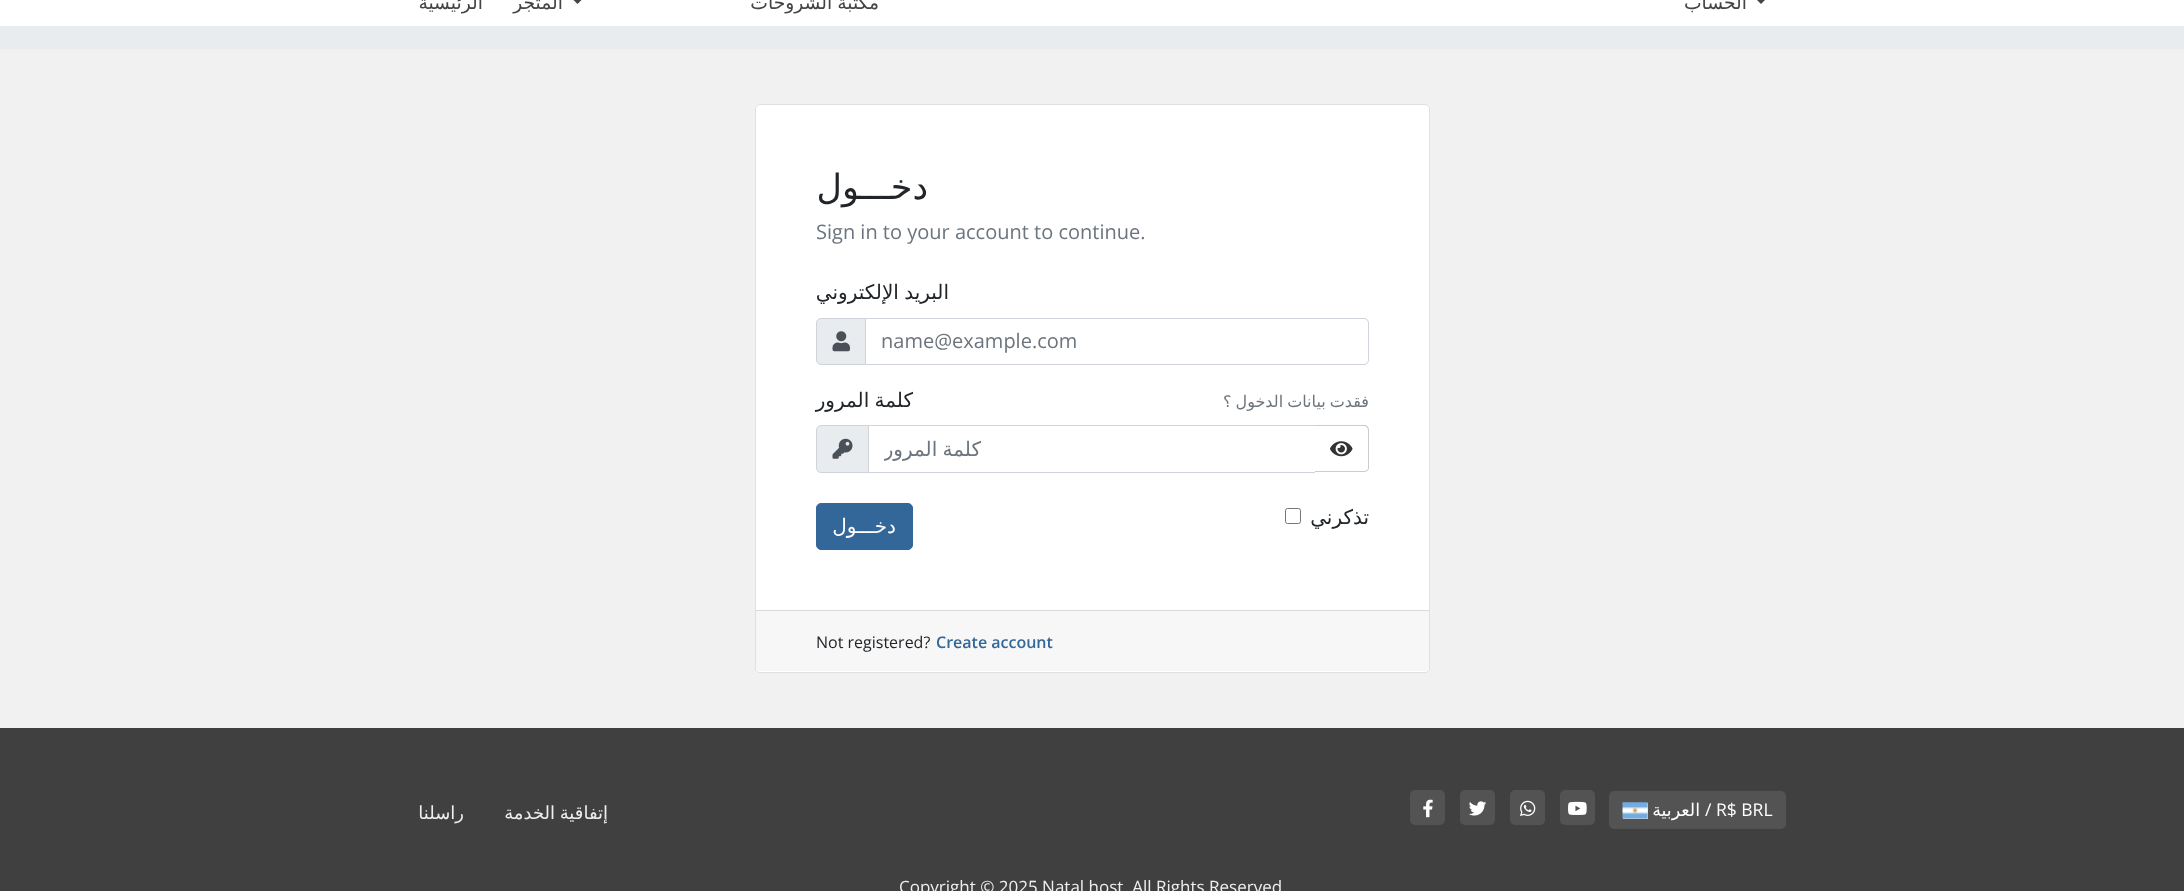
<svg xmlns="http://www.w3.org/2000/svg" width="2184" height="891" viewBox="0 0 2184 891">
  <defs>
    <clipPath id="clip1"><path d="M884 435h416v28H884z"/></clipPath>
  </defs>
  <rect width="100%" height="100%" fill="#f1f1f1"/>
  <path d="M0 0h2184v26H0z" fill="#fff"/>
  <path d="M1756-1H1766L1761 4Z" fill="#444"/>
  <path d="M572.5-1H582.5L577.5 4Z" fill="#444"/>
  <path d="M0 26h2184v23H0z" fill="#e9ecef"/>
  <rect x="755" y="104" width="675" height="569" rx="5" fill="#fff"/>
  <rect x="755.5" y="104.5" width="674" height="568" rx="4.5" fill="none" stroke="#0000001f"/>
  <path d="M821 318.5H865.5V364.5H821C818.5 364.5 816.5 362.5 816.5 360V323C816.5 320.5 818.5 318.5 821 318.5Z" fill="#e9ecef" stroke="#ced4da"/>
  <path d="M865.5 318.5H1364C1366.5 318.5 1368.5 320.5 1368.5 323V360C1368.5 362.5 1366.5 364.5 1364 364.5H865.5Z" fill="none" stroke="#ced4da"/>
  <image x="832" y="331" width="18" height="21" href="img/1.png"/>
  <path d="M821 425.5H868.5V472.5H821C818.5 472.5 816.5 470.5 816.5 468V430C816.5 427.5 818.5 425.5 821 425.5Z" fill="#e9ecef" stroke="#ced4da"/>
  <path d="M868.5 425.5h447v47H868.5z" fill="none" stroke="#ced4da"/>
  <path d="M1315 425H1364C1367 425 1369 427 1369 430V468C1369 471 1367 473 1364 473H1315Z" fill="#fff"/>
  <path d="M1315 425H1364C1367 425 1369 427 1369 430V468C1369 470 1367 472 1364 472H1315ZM1315 426H1364C1366 426 1368 428 1368 430V468C1368 470 1366 471 1364 471H1315Z" fill="#ccc" fill-rule="evenodd"/>
  <image x="1330" y="441" width="23" height="16" href="img/2.png"/>
  <image x="832" y="438" width="21" height="21" href="img/3.png"/>
  <rect x="1285.5" y="508.5" width="15" height="15" rx="2" fill="none" stroke="#767676"/>
  <rect x="816.5" y="503.5" width="96" height="46" rx="4.5" fill="#369" stroke="#369"/>
  <path d="M756 610H1429V667C1429 669 1427 671 1425 671H760C758 671 756 669 756 667Z" fill="#f7f7f7"/>
  <path d="M756 610h673v1H756z" fill="#d8d8d8"/>
  <path d="M0 728h2184v163H0z" fill="#404040"/>
  <rect x="1609" y="791" width="177" height="38" rx="5" fill="#535353"/>
  <path d="M1623 803h25v16H1623z" fill="#888" filter="blur(0.5px)"/>
  <path d="M1623 803h25v16H1623z" fill="#dbdbdb"/>
  <image x="1622" y="802" width="26" height="17" href="img/4.png"/>
  <rect x="1560" y="790" width="35" height="35" rx="5" fill="#535353"/>
  <image x="1568" y="801" width="19" height="14" href="img/5.png"/>
  <rect x="1510" y="790" width="35" height="35" rx="5" fill="#535353"/>
  <image x="1520" y="800" width="16" height="16" href="img/6.png"/>
  <rect x="1460" y="790" width="35" height="35" rx="5" fill="#535353"/>
  <image x="1469" y="801" width="18" height="15" href="img/7.png"/>
  <rect x="1410" y="790" width="35" height="35" rx="5" fill="#535353"/>
  <image x="1423" y="799" width="10" height="19" href="img/8.png"/>
  <g font-family="DejaVu Sans" font-size="18.75" direction="rtl" fill="#444">
    <text x="1747" y="9">الحساب</text>
    <text x="879" y="9" word-spacing="-1">مكتبة الشروحات</text>
    <text x="563" y="9">المتجر</text>
    <text x="483" y="9">الرئيسية</text>
  </g>
  <text x="928" y="199" font-family="DejaVu Sans" font-size="35" direction="rtl" fill="#212529">دخـــول</text>
  <text x="816" y="239" font-family="Open Sans" font-size="20" fill="#6c757d">Sign in to your account to continue.</text>
  <text x="949" y="299" word-spacing="-1" font-family="DejaVu Sans" font-size="20" direction="rtl" fill="#212529">البريد الإلكتروني</text>
  <text x="881" y="348" font-family="Open Sans" font-size="20" fill="#6c757d">name@example.com</text>
  <text x="1369" y="407" word-spacing="-1" font-family="DejaVu Sans" font-size="16" direction="rtl" fill="#6c757d">فقدت بيانات الدخول ؟</text>
  <text x="913" y="407" word-spacing="-1" font-family="DejaVu Sans" font-size="20" direction="rtl" fill="#212529">كلمة المرور</text>
  <g clip-path="url(#clip1)">
    <text x="981" y="456" word-spacing="-1" font-family="DejaVu Sans" font-size="20" direction="rtl" fill="#6c757d">كلمة المرور</text>
  </g>
  <text x="1369" y="524" font-family="DejaVu Sans" font-size="20" direction="rtl" fill="#212529">تذكرني</text>
  <text x="896" y="533" font-family="DejaVu Sans" font-size="20" direction="rtl" fill="#fff">دخـــول</text>
  <text x="936" y="648" font-family="Open Sans" font-size="16" font-weight="600" fill="#369">Create account</text>
  <text x="816" y="648" font-family="Open Sans" font-size="16" fill="#212529">Not registered?</text>
  <text x="1705" y="816" font-family="Open Sans" font-size="17.5" fill="#fff">/ R$ BRL</text>
  <text x="1700" y="816" font-family="DejaVu Sans" font-size="17.5" direction="rtl" fill="#fff">العربية</text>
  <g font-family="DejaVu Sans" font-size="18" direction="rtl" fill="#eee">
    <text x="608" y="819" word-spacing="-1">إتفاقية الخدمة</text>
    <text x="464" y="819">راسلنا</text>
  </g>
  <text x="899" y="893" font-family="Open Sans" font-size="17" fill="#eee">Copyright © 2025 Natal host. All Rights Reserved</text>
</svg>
